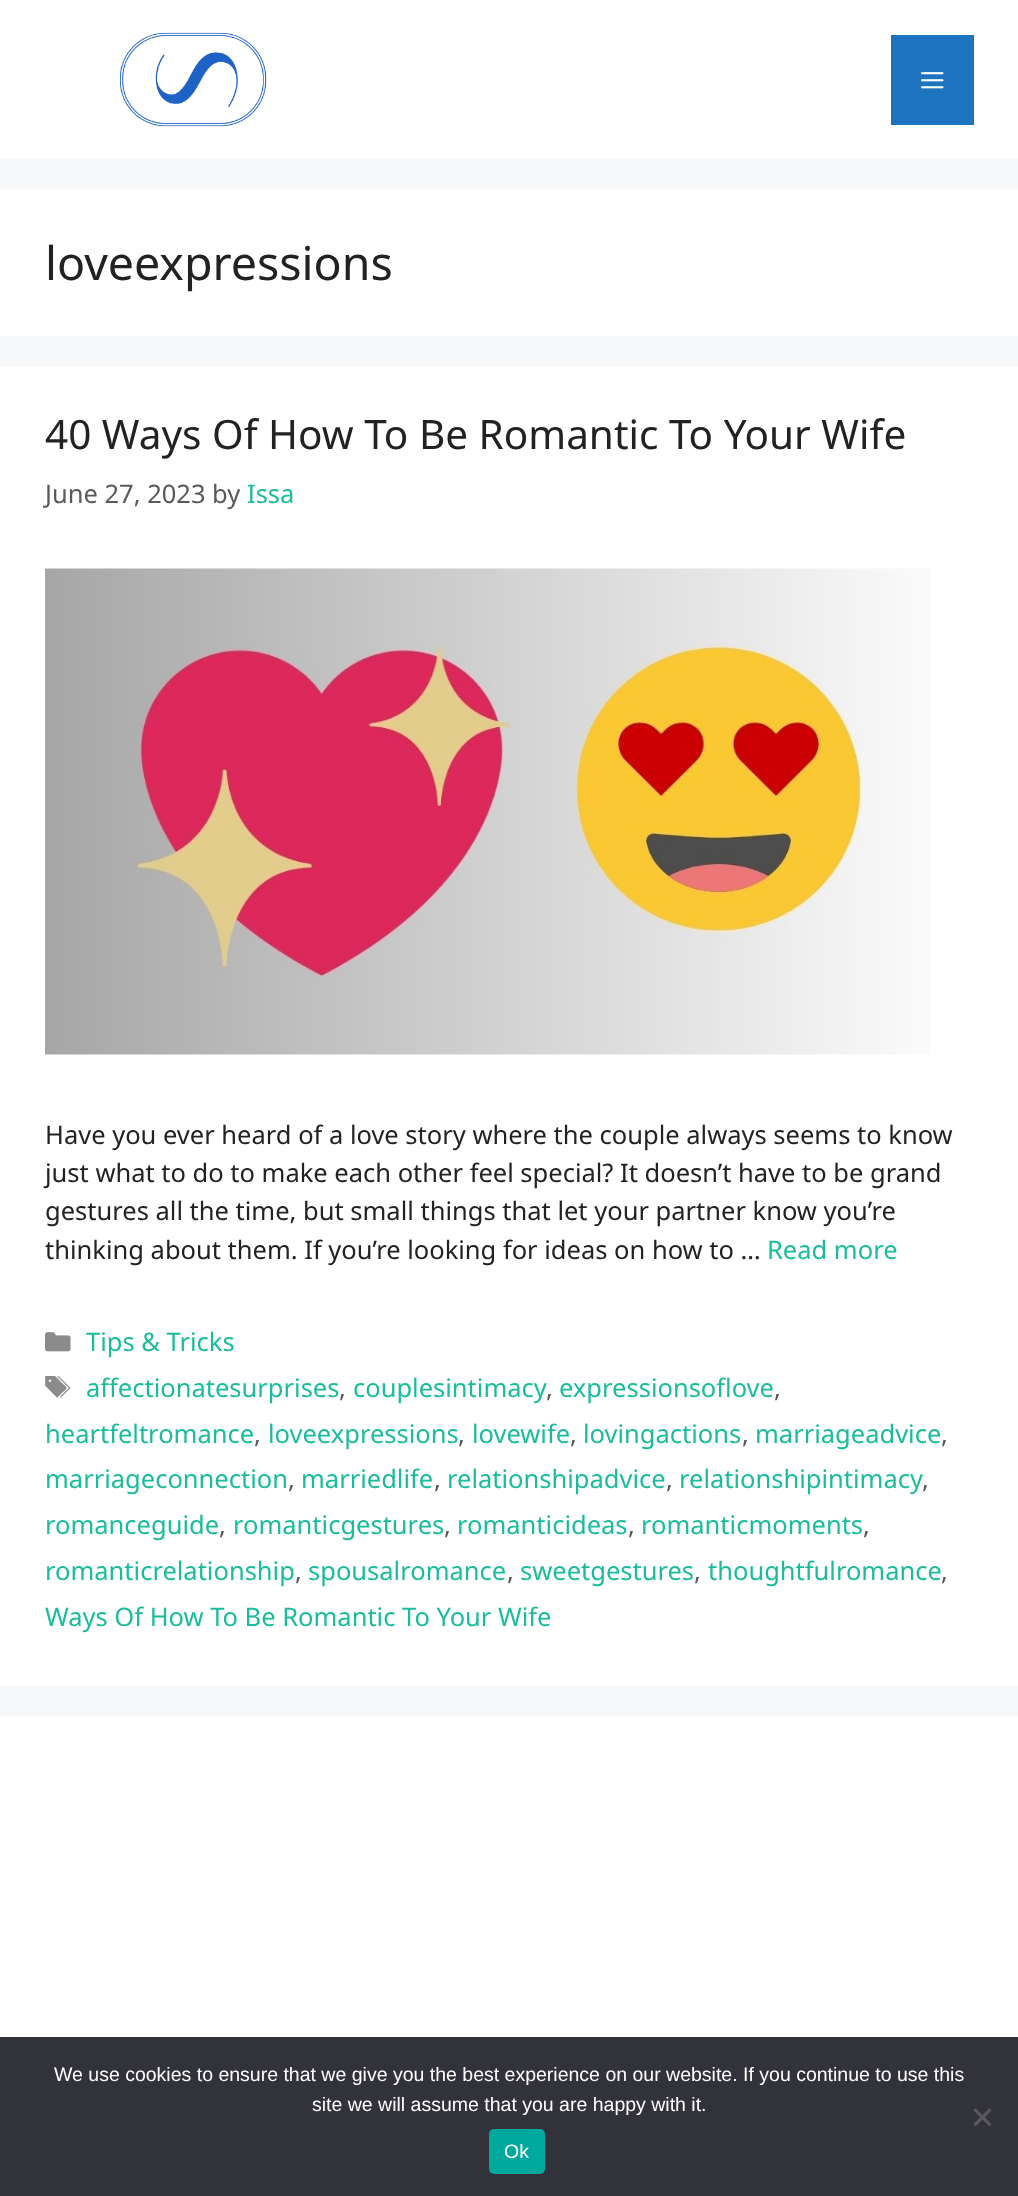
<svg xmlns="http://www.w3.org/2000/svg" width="1018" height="2196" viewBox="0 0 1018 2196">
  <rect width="100%" height="100%" fill="#f7f8f9"/>
  <path d="M0 0h1018v159H0z" fill="#fff"/>
  <image x="120" y="32" width="147" height="95" href="img/1.png"/>
  <path d="M891 35h83v90H891z" fill="#1e73be"/>
  <image x="921" y="72" width="23" height="17" href="img/2.png"/>
  <path d="M0 189h1018v147H0z" fill="#fff"/>
  <path d="M0 366h1018v1320H0z" fill="#fff"/>
  <image x="45" y="568" width="886" height="487" href="img/3.png"/>
  <image x="45" y="1332" width="26" height="20" href="img/4.png"/>
  <image x="45" y="1376" width="26" height="22" href="img/5.png"/>
  <path d="M0 1716h1018v321H0z" fill="#fff"/>
  <path d="M0 2037h1018v159H0z" fill="#32323a"/>
  <path d="M989.5 2108L991.5 2110.5L975.5 2126.5L973.5 2124Z" fill="#59595d"/>
  <path d="M973.5 2110.5L975.5 2108L991.5 2124L989.5 2126.5Z" fill="#59595d"/>
  <rect x="489" y="2129" width="56" height="45" rx="5" fill="#00a99d"/>
  <text x="45" y="280" font-family="Noto Sans" font-size="46.5" fill="#222">loveexpressions</text>
  <text x="45" y="449" font-family="Noto Sans" font-size="40.5" fill="#222">40 Ways Of How To Be Romantic To Your Wife</text>
  <text x="45" y="503" font-family="Noto Sans" font-size="25.5" fill="#595959">June 27, 2023 by</text>
  <text x="247" y="503" font-family="Noto Sans" font-size="25.5" fill="#1abc9c">Issa</text>
  <g font-family="Noto Sans" font-size="25.5" fill="#222">
    <text x="45" y="1144">Have you ever heard of a love story where the couple always seems to know</text>
    <text x="45" y="1182">just what to do to make each other feel special? It doesn’t have to be grand</text>
    <text x="45" y="1220">gestures all the time, but small things that let your partner know you’re</text>
    <text x="45" y="1259">thinking about them. If you’re looking for ideas on how to …</text>
  </g>
  <g font-family="Noto Sans" font-size="25.5" fill="#1abc9c">
    <text x="767" y="1259">Read more</text>
    <text x="86" y="1351">Tips &amp; Tricks</text>
    <text x="86" y="1397">affectionatesurprises</text>
  </g>
  <text x="339" y="1397" font-family="Noto Sans" font-size="25.5" fill="#595959">,</text>
  <text x="353" y="1397" font-family="Noto Sans" font-size="25.5" fill="#1abc9c">couplesintimacy</text>
  <text x="546" y="1397" font-family="Noto Sans" font-size="25.5" fill="#595959">,</text>
  <text x="559" y="1397" font-family="Noto Sans" font-size="25.5" fill="#1abc9c">expressionsoflove</text>
  <text x="774" y="1397" font-family="Noto Sans" font-size="25.5" fill="#595959">,</text>
  <text x="45" y="1443" font-family="Noto Sans" font-size="25.5" fill="#1abc9c">heartfeltromance</text>
  <text x="254" y="1443" font-family="Noto Sans" font-size="25.5" fill="#595959">,</text>
  <text x="268" y="1443" font-family="Noto Sans" font-size="25.5" fill="#1abc9c">loveexpressions</text>
  <text x="458" y="1443" font-family="Noto Sans" font-size="25.5" fill="#595959">,</text>
  <text x="472" y="1443" font-family="Noto Sans" font-size="25.5" fill="#1abc9c">lovewife</text>
  <text x="570" y="1443" font-family="Noto Sans" font-size="25.5" fill="#595959">,</text>
  <text x="583" y="1443" font-family="Noto Sans" font-size="25.5" fill="#1abc9c">lovingactions</text>
  <text x="742" y="1443" font-family="Noto Sans" font-size="25.5" fill="#595959">,</text>
  <text x="755" y="1443" font-family="Noto Sans" font-size="25.5" fill="#1abc9c">marriageadvice</text>
  <text x="941" y="1443" font-family="Noto Sans" font-size="25.5" fill="#595959">,</text>
  <text x="45" y="1488" font-family="Noto Sans" font-size="25.5" fill="#1abc9c">marriageconnection</text>
  <text x="288" y="1488" font-family="Noto Sans" font-size="25.5" fill="#595959">,</text>
  <text x="301" y="1488" font-family="Noto Sans" font-size="25.5" fill="#1abc9c">marriedlife</text>
  <text x="434" y="1488" font-family="Noto Sans" font-size="25.5" fill="#595959">,</text>
  <text x="447" y="1488" font-family="Noto Sans" font-size="25.5" fill="#1abc9c">relationshipadvice</text>
  <text x="666" y="1488" font-family="Noto Sans" font-size="25.5" fill="#595959">,</text>
  <text x="679" y="1488" font-family="Noto Sans" font-size="25.5" fill="#1abc9c">relationshipintimacy</text>
  <text x="922" y="1488" font-family="Noto Sans" font-size="25.5" fill="#595959">,</text>
  <text x="45" y="1534" font-family="Noto Sans" font-size="25.5" fill="#1abc9c">romanceguide</text>
  <text x="219" y="1534" font-family="Noto Sans" font-size="25.5" fill="#595959">,</text>
  <text x="233" y="1534" font-family="Noto Sans" font-size="25.5" fill="#1abc9c">romanticgestures</text>
  <text x="444" y="1534" font-family="Noto Sans" font-size="25.5" fill="#595959">,</text>
  <text x="457" y="1534" font-family="Noto Sans" font-size="25.5" fill="#1abc9c">romanticideas</text>
  <text x="628" y="1534" font-family="Noto Sans" font-size="25.5" fill="#595959">,</text>
  <text x="641" y="1534" font-family="Noto Sans" font-size="25.5" fill="#1abc9c">romanticmoments</text>
  <text x="863" y="1534" font-family="Noto Sans" font-size="25.5" fill="#595959">,</text>
  <text x="45" y="1580" font-family="Noto Sans" font-size="25.5" fill="#1abc9c">romanticrelationship</text>
  <text x="295" y="1580" font-family="Noto Sans" font-size="25.5" fill="#595959">,</text>
  <text x="308" y="1580" font-family="Noto Sans" font-size="25.5" fill="#1abc9c">spousalromance</text>
  <text x="507" y="1580" font-family="Noto Sans" font-size="25.5" fill="#595959">,</text>
  <text x="520" y="1580" font-family="Noto Sans" font-size="25.5" fill="#1abc9c">sweetgestures</text>
  <text x="694" y="1580" font-family="Noto Sans" font-size="25.5" fill="#595959">,</text>
  <text x="708" y="1580" font-family="Noto Sans" font-size="25.5" fill="#1abc9c">thoughtfulromance</text>
  <text x="941" y="1580" font-family="Noto Sans" font-size="25.5" fill="#595959">,</text>
  <text x="45" y="1626" font-family="Noto Sans" font-size="25.5" fill="#1abc9c">Ways Of How To Be Romantic To Your Wife</text>
  <g font-family="Liberation Sans" font-size="19.5" fill="#fff">
    <text x="54" y="2081">We use cookies to ensure that we give you the best experience on our website. If you continue to use this</text>
    <text x="312" y="2111">site we will assume that you are happy with it.</text>
    <text x="504" y="2158">Ok</text>
  </g>
</svg>
